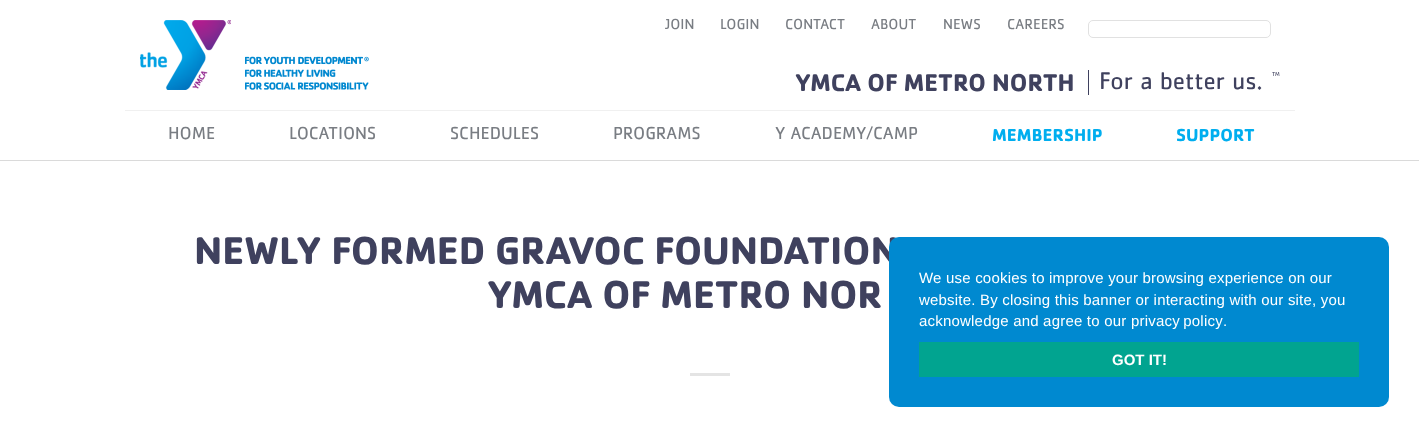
<svg xmlns="http://www.w3.org/2000/svg" width="1419" height="437" viewBox="0 0 1419 437">
  <rect width="100%" height="100%" fill="#fff"/>
  <image x="140" y="20" width="91" height="70" href="img/1.png"/>
  <image x="245" y="56" width="124" height="34" href="img/2.png"/>
  <rect x="1088.5" y="20.5" width="182" height="17" rx="4.5" fill="none" stroke="#e1e1e1"/>
  <path d="M1088 70h1v25H1088z" fill="#3f415e"/>
  <path d="M0 160h1419v1H0z" fill="#dadada"/>
  <path d="M125 110h1170v1H125z" fill="#f0f0f0"/>
  <path d="M690 373h40v3H690z" fill="#e4e4e4"/>
  <g font-family="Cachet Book" font-size="15" fill="#797d83">
    <text x="665" y="29">JOIN</text>
    <text x="720" y="29">LOGIN</text>
    <text x="785" y="29">CONTACT</text>
    <text x="871" y="29">ABOUT</text>
    <text x="943" y="29">NEWS</text>
    <text x="1007" y="29">CAREERS</text>
  </g>
  <text x="795" y="91" font-family="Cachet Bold" font-size="25" font-weight="bold" fill="#3f415e">YMCA OF METRO NORTH</text>
  <text x="1099" y="89" font-family="Cachet Book" font-size="25" fill="#3f415e">For a better us.</text>
  <text x="1272" y="76" font-family="Cachet Book" font-size="6" fill="#3f415e">TM</text>
  <g font-family="Cachet Book" font-size="18" fill="#797d83">
    <text x="168" y="139">HOME</text>
    <text x="289" y="139">LOCATIONS</text>
    <text x="450" y="139">SCHEDULES</text>
    <text x="613" y="139">PROGRAMS</text>
    <text x="775" y="139">Y ACADEMY/CAMP</text>
  </g>
  <g font-family="Cachet Bold" font-size="18" font-weight="bold" fill="#00aeef">
    <text x="992" y="141">MEMBERSHIP</text>
    <text x="1176" y="141">SUPPORT</text>
  </g>
  <g font-family="Cachet Bold" font-size="40" font-weight="bold" letter-spacing="-0.1" fill="#3f415e">
    <text x="194" y="264">NEWLY FORMED GRAVOC FOUNDATION</text>
    <text x="487" y="308">YMCA OF METRO NOR</text>
  </g>
  <rect x="889" y="237" width="500" height="170" rx="10" fill="#0089d0"/>
  <g font-family="Liberation Sans" font-size="15" letter-spacing="0.2" fill="#fff">
    <text x="919" y="283">We use cookies to improve your browsing experience on our</text>
    <text x="919" y="305">website. By closing this banner or interacting with our site, you</text>
    <text x="919" y="326">acknowledge and agree to our</text>
    <text x="1131" y="326" word-spacing="-1">privacy policy</text>
    <text x="1223" y="326">.</text>
  </g>
  <path d="M919 342h440v35H919z" fill="#01a490"/>
  <text x="1112" y="365" font-family="Liberation Sans" font-size="15" font-weight="bold" fill="#fff">GOT IT!</text>
</svg>
